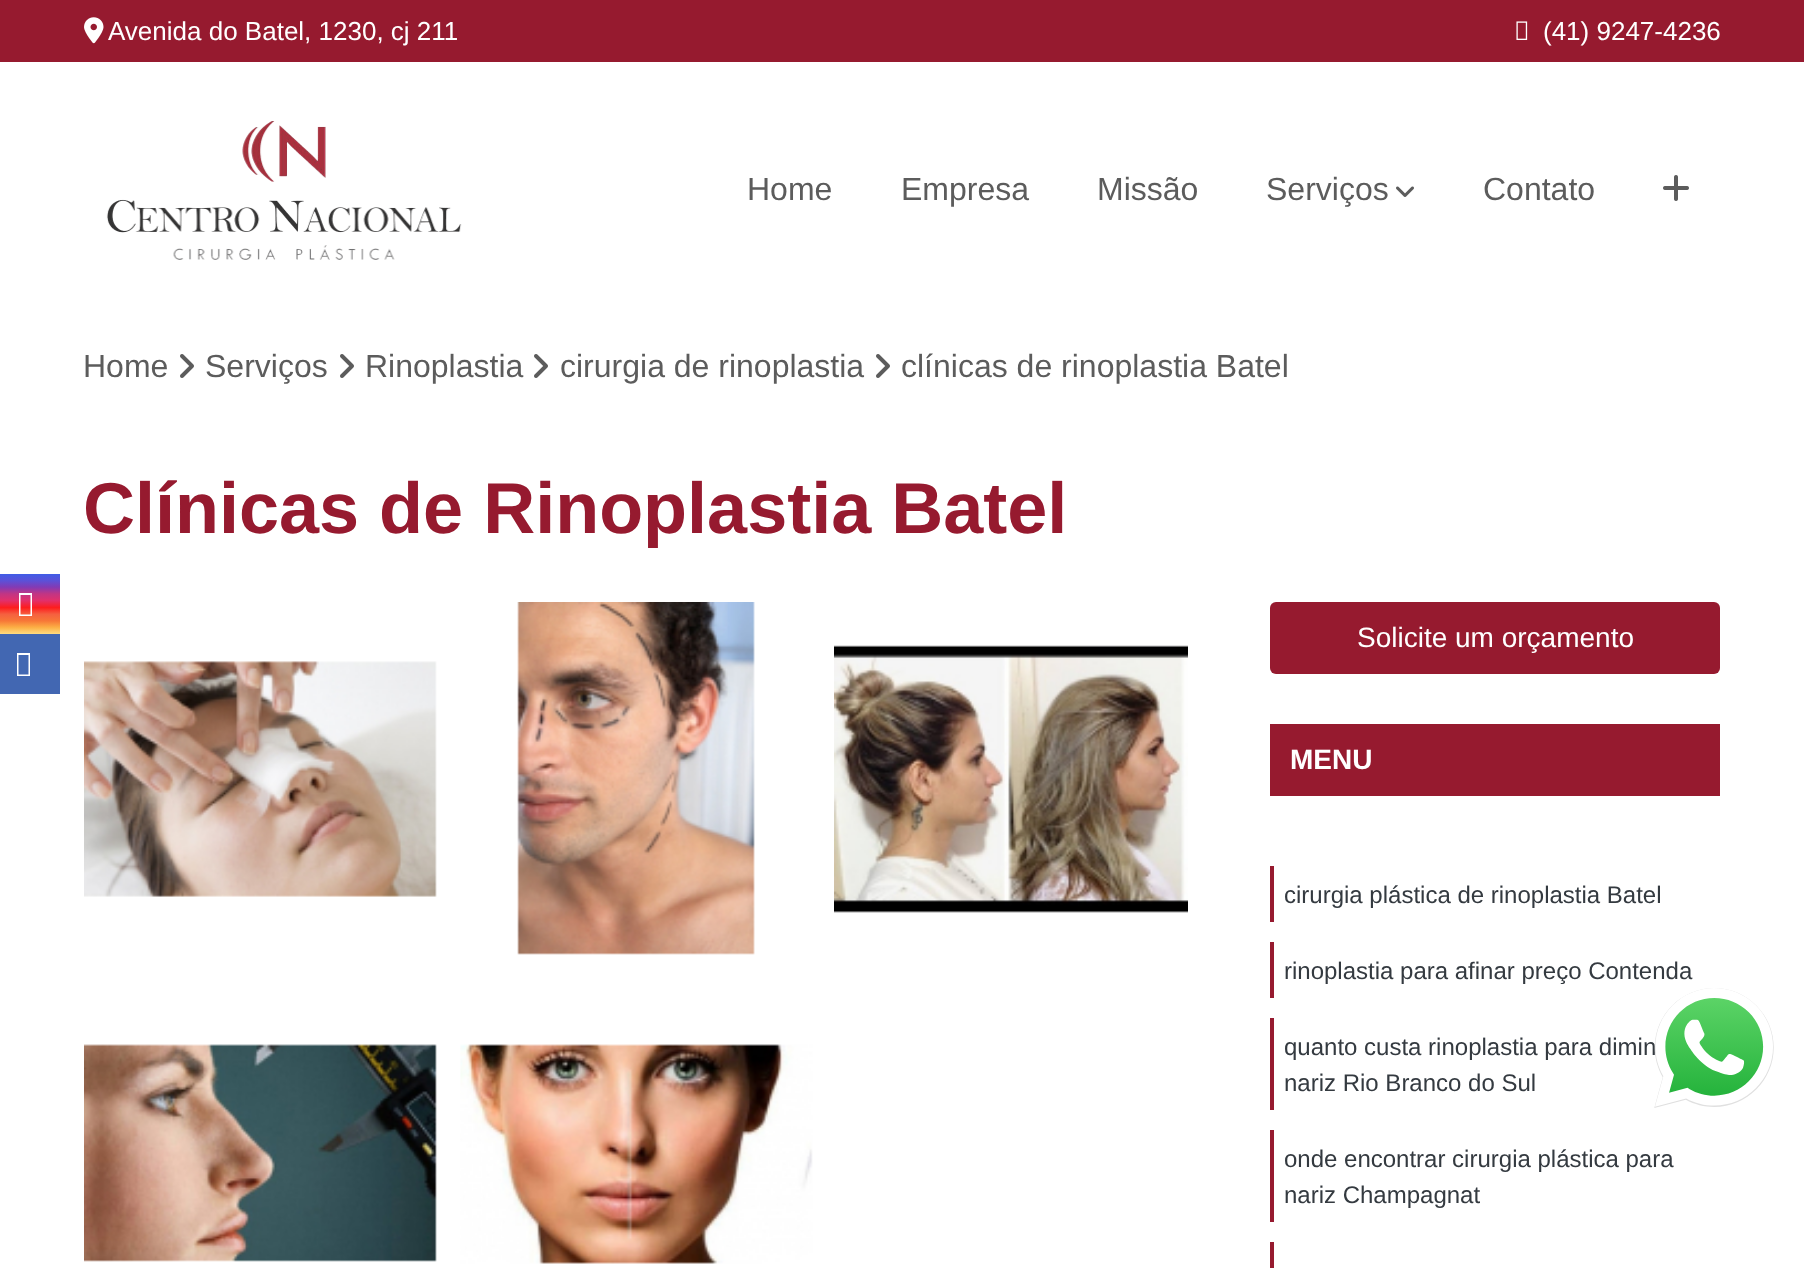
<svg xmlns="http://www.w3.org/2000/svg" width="1804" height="1268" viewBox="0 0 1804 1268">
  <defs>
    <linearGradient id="g1" gradientUnits="userSpaceOnUse" x1="30" y1="574" x2="30" y2="634"><stop offset="0" stop-color="#405de6"/><stop offset="0.11" stop-color="#5b51d8"/><stop offset="0.22" stop-color="#833ab4"/><stop offset="0.33" stop-color="#c13584"/><stop offset="0.44" stop-color="#e1306c"/><stop offset="0.56" stop-color="#fd1d1d"/><stop offset="0.67" stop-color="#f56040"/><stop offset="0.78" stop-color="#f77737"/><stop offset="0.89" stop-color="#fcaf45"/><stop offset="1" stop-color="#ffdc80"/></linearGradient>
  </defs>
  <rect width="100%" height="100%" fill="#fff"/>
  <path d="M0 0h1804v62H0z" fill="#961a2f"/>
  <image x="84" y="17" width="20" height="27" href="img/1.png"/>
  <image x="1516" y="21" width="12" height="19" href="img/2.png"/>
  <image x="106" y="121" width="356" height="139" href="img/3.png"/>
  <image x="1396" y="186" width="18" height="11" href="img/4.png"/>
  <image x="1663" y="175" width="26" height="26" href="img/5.png"/>
  <image x="180" y="354" width="14" height="24" href="img/6.png"/>
  <image x="340" y="354" width="14" height="24" href="img/6.png"/>
  <image x="534" y="354" width="14" height="24" href="img/6.png"/>
  <image x="876" y="354" width="14" height="24" href="img/6.png"/>
  <image x="84" y="661" width="353" height="236" href="img/7.png"/>
  <image x="517" y="602" width="238" height="353" href="img/8.png"/>
  <image x="834" y="645" width="354" height="268" href="img/9.png"/>
  <image x="84" y="1044" width="353" height="218" href="img/10.png"/>
  <image x="460" y="1044" width="353" height="220" href="img/11.png"/>
  <rect x="1270" y="602" width="450" height="72" rx="6" fill="#961a2f"/>
  <path d="M1270 724h450v72H1270z" fill="#961a2f"/>
  <path d="M1270 866h4v56H1270z" fill="#961a2f"/>
  <path d="M1270 942h4v56H1270z" fill="#961a2f"/>
  <path d="M1270 1018h4v92H1270z" fill="#961a2f"/>
  <path d="M1270 1130h4v92H1270z" fill="#961a2f"/>
  <path d="M1270 1242h4v26H1270z" fill="#961a2f"/>
  <path d="M0 574h60v60H0z" fill="url(#g1)"/>
  <path d="M19 616V593H32V616ZM20.5 614.5H30.5V595H20.5Z" fill="#fff"/>
  <path d="M0 634h60v60H0z" fill="#4267b2"/>
  <path d="M17 676V653H30V676ZM18.5 674.5H28.5V655H18.5Z" fill="#fff"/>
  <g font-family="Liberation Sans" font-size="26" fill="#fff">
    <text x="108" y="40">Avenida do Batel, 1230, cj 211</text>
    <text x="1543" y="40">(41) 9247-4236</text>
  </g>
  <g font-family="Liberation Sans" font-size="32" fill="#5c5c5c">
    <text x="747" y="200">Home</text>
    <text x="901" y="200">Empresa</text>
    <text x="1097" y="200">Missão</text>
    <text x="1266" y="200">Serviços</text>
    <text x="1483" y="200">Contato</text>
    <text x="83" y="377">Home</text>
    <text x="205" y="377">Serviços</text>
    <text x="365" y="377">Rinoplastia</text>
    <text x="560" y="377">cirurgia de rinoplastia</text>
    <text x="901" y="377">clínicas de rinoplastia Batel</text>
  </g>
  <text x="83" y="533" font-family="Liberation Sans" font-size="72" font-weight="bold" fill="#961a2f">Clínicas de Rinoplastia Batel</text>
  <text x="1357" y="647" font-family="Liberation Sans" font-size="28" fill="#fff">Solicite um orçamento</text>
  <text x="1290" y="769" font-family="Liberation Sans" font-size="28" font-weight="bold" fill="#fff">MENU</text>
  <g font-family="Liberation Sans" font-size="24" fill="#343a40">
    <text x="1284" y="903">cirurgia plástica de rinoplastia Batel</text>
    <text x="1284" y="979">rinoplastia para afinar preço Contenda</text>
    <text x="1284" y="1055">quanto custa rinoplastia para dimin</text>
    <text x="1284" y="1091">nariz Rio Branco do Sul</text>
    <text x="1284" y="1167">onde encontrar cirurgia plástica para</text>
    <text x="1284" y="1203">nariz Champagnat</text>
  </g>
  <image x="1654" y="988" width="120" height="120" href="img/12.png"/>
</svg>
